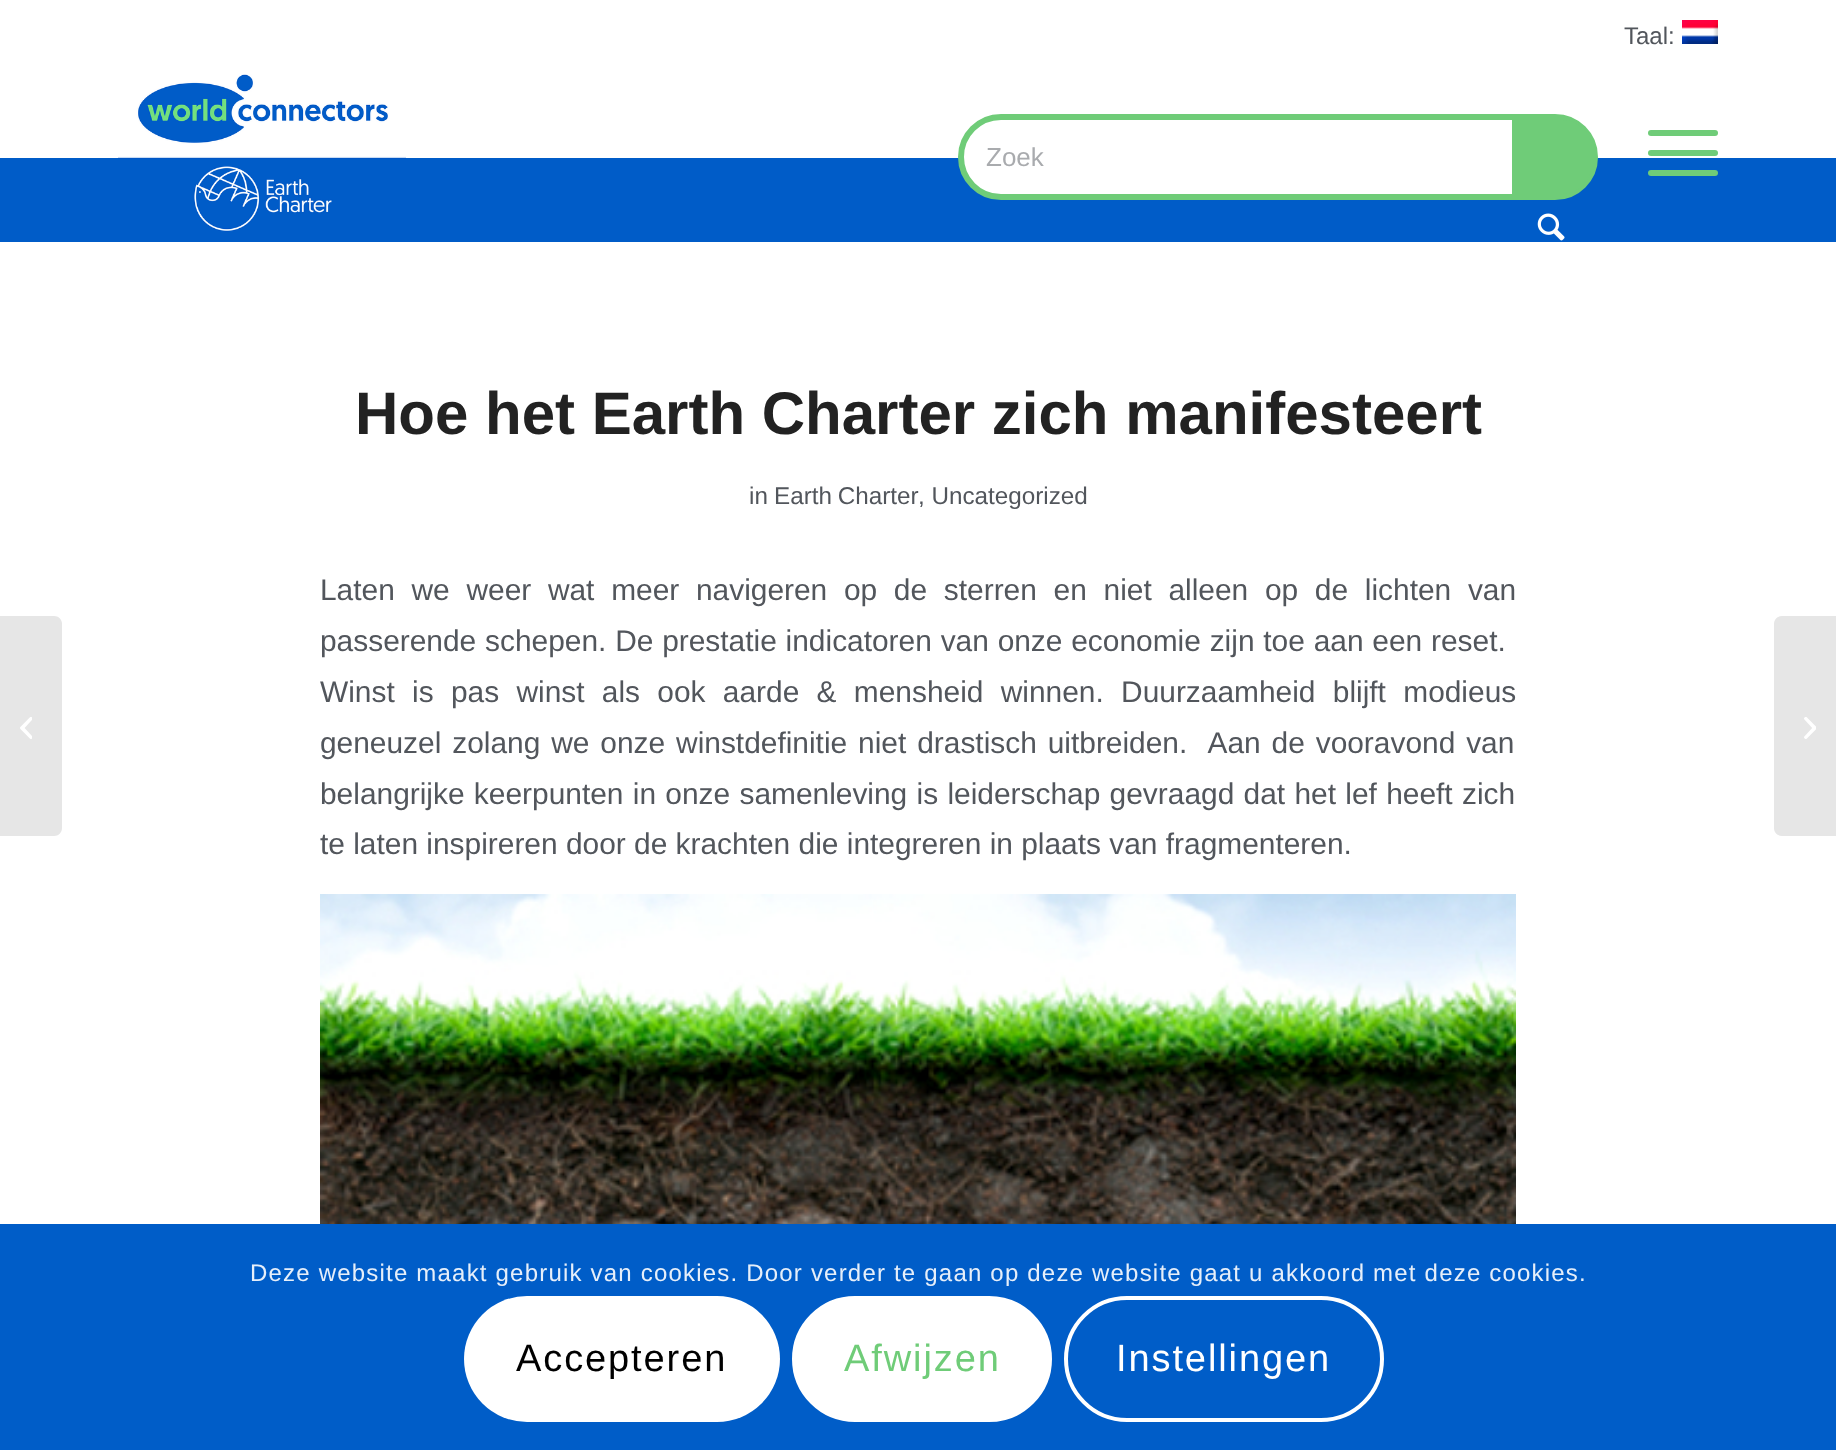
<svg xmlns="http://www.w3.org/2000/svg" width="1836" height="1450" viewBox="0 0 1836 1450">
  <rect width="100%" height="100%" fill="#fff"/>
  <image x="1682" y="20" width="36" height="24" href="img/1.png"/>
  <path d="M0 158h1836v84H0z" fill="#005cc8"/>
  <image x="118" y="74" width="288" height="158" href="img/2.png"/>
  <rect x="961" y="117" width="634" height="80" rx="40" fill="#fff" stroke="#6fcc78" stroke-width="6"/>
  <path d="M1512 120H1562C1578.5 120 1592 133.5 1592 150V164C1592 180.5 1578.5 194 1562 194H1512Z" fill="#6fcc78"/>
  <image x="1537" y="213" width="28" height="28" href="img/3.png"/>
  <rect x="1648" y="150" width="70" height="6" rx="3" fill="#6fcc78"/>
  <rect x="1648" y="130" width="70" height="6" rx="3" fill="#6fcc78"/>
  <rect x="1648" y="170" width="70" height="6" rx="3" fill="#6fcc78"/>
  <path d="M0 616H54C58.5 616 62 619.5 62 624V828C62 832.5 58.5 836 54 836H0Z" fill="#e6e6e6"/>
  <image x="20" y="717" width="12" height="22" href="img/4.png"/>
  <image x="320" y="894" width="1196" height="330" href="img/5.png"/>
  <path d="M1782 616H1836V836H1782C1777.5 836 1774 832.5 1774 828V624C1774 619.5 1777.5 616 1782 616Z" fill="#e6e6e6"/>
  <image x="1804" y="717" width="12" height="22" href="img/6.png"/>
  <path d="M0 1224h1836v226H0z" fill="#005dc8"/>
  <rect x="464" y="1296" width="316" height="126" rx="63" fill="#fff"/>
  <rect x="794" y="1298" width="256" height="122" rx="61" fill="#fff" stroke="#fff" stroke-width="4"/>
  <rect x="1066" y="1298" width="316" height="122" rx="61" fill="none" stroke="#fff" stroke-width="4"/>
  <text x="1624" y="44" font-family="Liberation Sans" font-size="24" fill="#52565c">Taal:</text>
  <text x="986" y="166" font-family="Liberation Sans" font-size="26" fill="#a9abae">Zoek</text>
  <text x="355" y="434" font-family="Liberation Sans" font-size="60" font-weight="bold" fill="#222">Hoe het Earth Charter zich manifesteert</text>
  <g font-family="Liberation Sans" font-size="24.25" fill="#52565c">
    <text x="749" y="504">in</text>
    <text x="774" y="504" word-spacing="-1">Earth Charter</text>
    <text x="918" y="504">, Uncategorized</text>
  </g>
  <g font-family="Liberation Sans" font-size="29.9" fill="#52565c">
    <text x="320" y="600" word-spacing="8.4">Laten we weer wat meer navigeren op de sterren en niet alleen op de lichten van</text>
    <text x="320" y="651" word-spacing="0.5">passerende schepen. De prestatie indicatoren van onze economie zijn toe aan een reset.</text>
    <text x="320" y="702" word-spacing="9">Winst is pas winst als ook aarde &amp; mensheid winnen. Duurzaamheid blijft modieus</text>
    <text x="320" y="753" word-spacing="2.6" xml:space="preserve">geneuzel zolang we onze winstdefinitie niet drastisch uitbreiden.  Aan de vooravond van</text>
    <text x="320" y="804" word-spacing="1">belangrijke keerpunten in onze samenleving is leiderschap gevraagd dat het lef heeft zich</text>
    <text x="320" y="854">te laten inspireren door de krachten die integreren in plaats van fragmenteren.</text>
  </g>
  <text x="250" y="1281" font-family="Liberation Sans" font-size="24" letter-spacing="1.2" fill="#e6effa">Deze website maakt gebruik van cookies. Door verder te gaan op deze website gaat u akkoord met deze cookies.</text>
  <text x="516" y="1371" font-family="Liberation Sans" font-size="38" letter-spacing="1.9" fill="#000">Accepteren</text>
  <text x="844" y="1371" font-family="Liberation Sans" font-size="38" letter-spacing="1.9" fill="#6fcc78">Afwijzen</text>
  <text x="1116" y="1371" font-family="Liberation Sans" font-size="38" letter-spacing="1.9" fill="#fff">Instellingen</text>
</svg>
